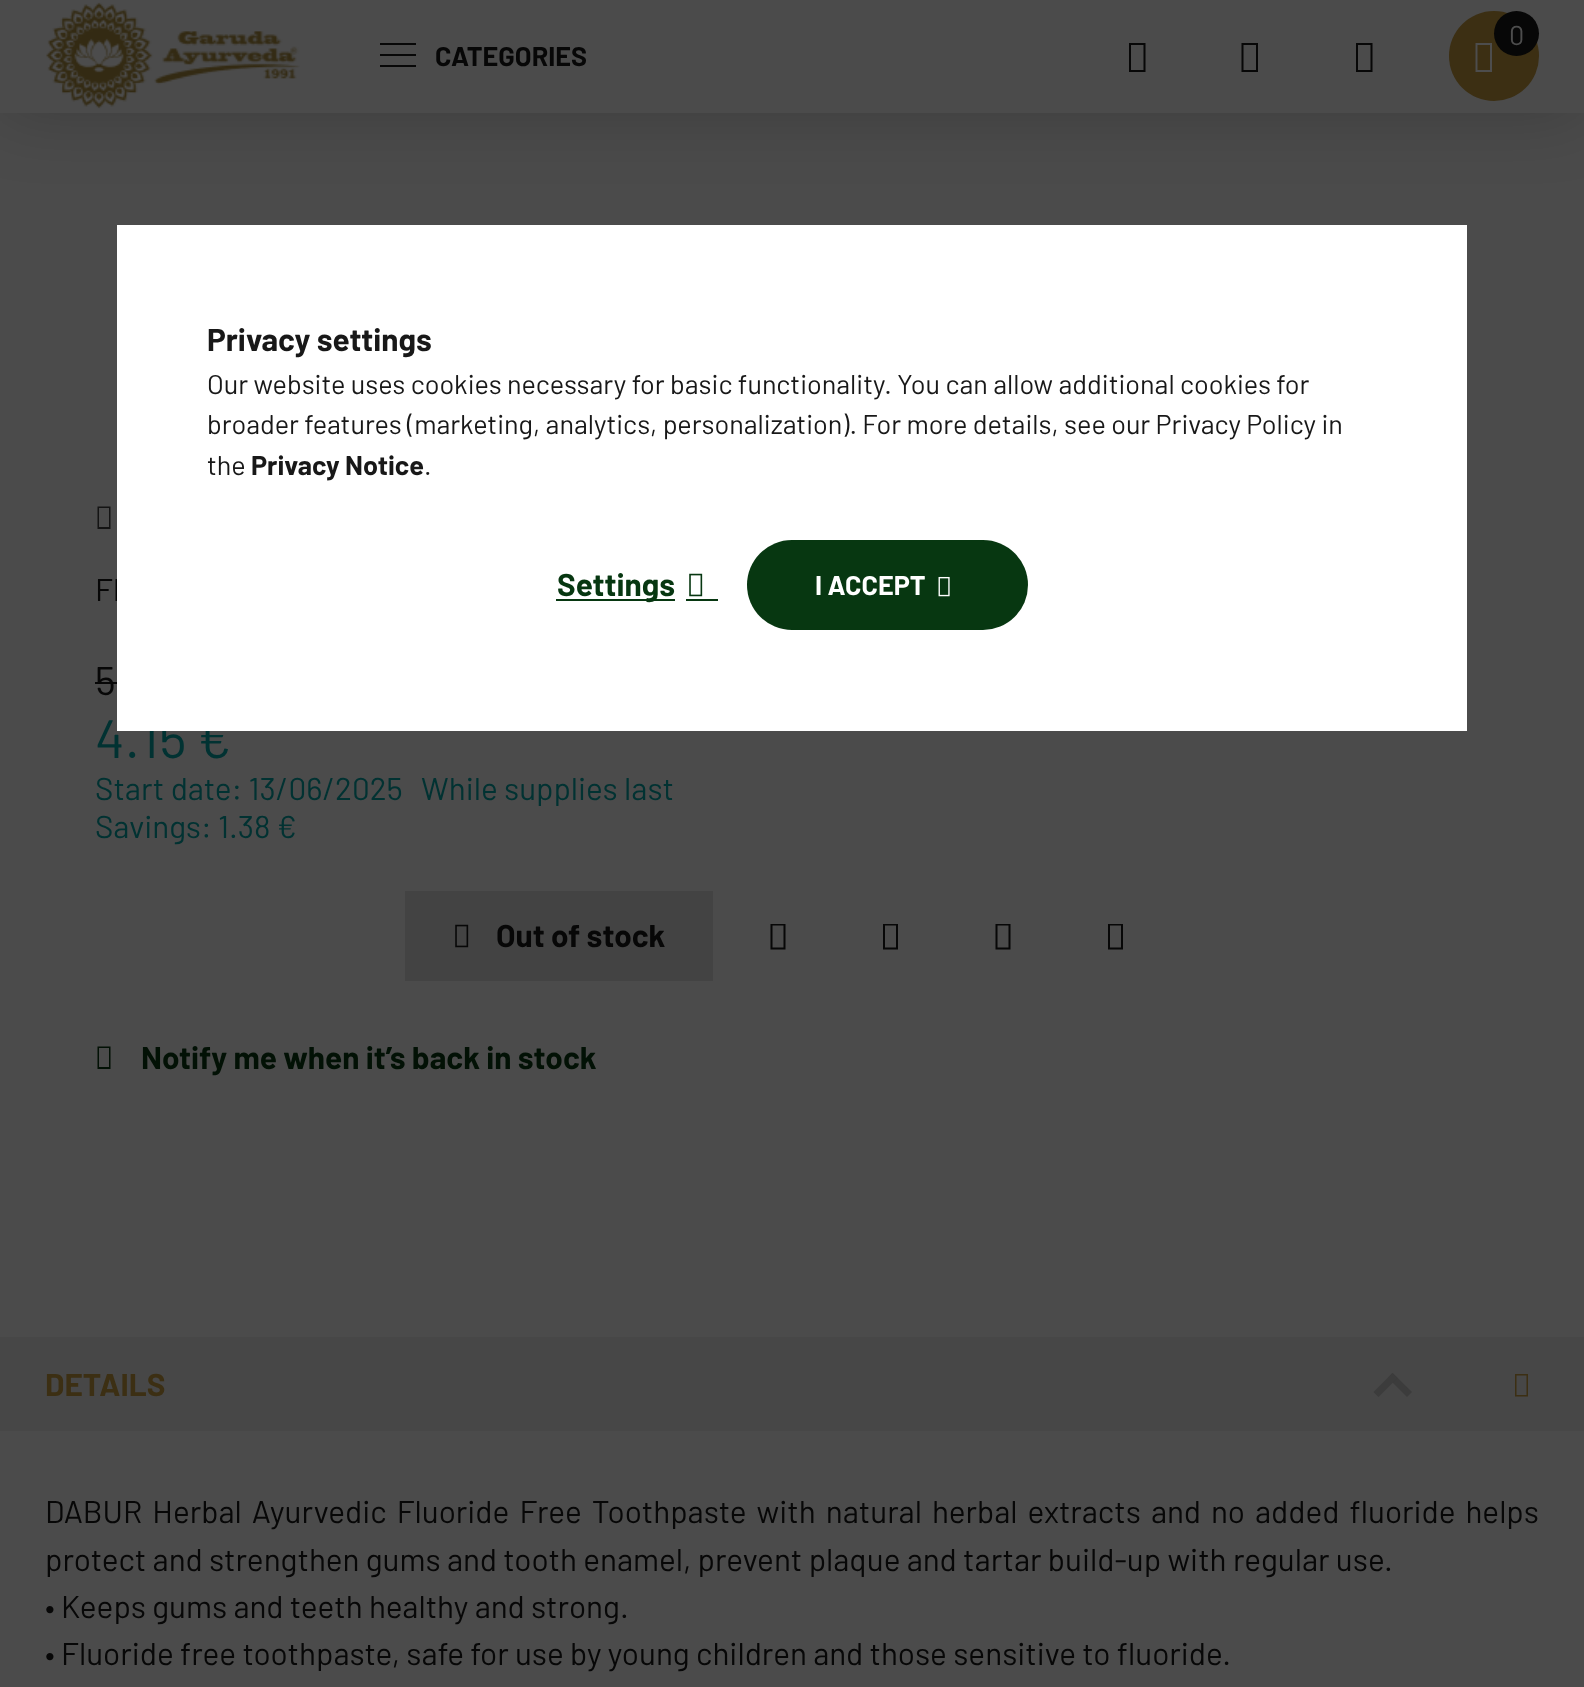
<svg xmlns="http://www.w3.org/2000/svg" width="1584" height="1687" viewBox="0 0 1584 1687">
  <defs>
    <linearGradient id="g1" gradientUnits="userSpaceOnUse" x1="747" y1="585" x2="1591" y2="585"><stop offset="0.33" stop-color="#073711"/><stop offset="0.67" stop-color="#c79c3f"/></linearGradient>
  </defs>
  <rect width="100%" height="100%" fill="#4b4b4b"/>
  <path d="M0 0h1584v113H0z" fill="#00000033" filter="blur(34px)"/>
  <path d="M0 0h1584v113H0z" fill="#4b4b4b"/>
  <circle cx="1494" cy="56" r="45" fill="#3c2f13"/>
  <circle cx="1516.5" cy="33.5" r="22.5" fill="#070707"/>
  <path d="M1475.5 72V43H1492V72ZM1477.5 70H1490V45H1477.5Z" fill="#4d4d4d"/>
  <path d="M1129 72V43H1145.5V72ZM1131 70H1143.5V45H1131Z" fill="#070707"/>
  <path d="M1241.5 72V43H1258V72ZM1243.5 70H1256V45H1243.5Z" fill="#070707"/>
  <path d="M1356 72V43H1372.5V72ZM1358 70H1370.5V45H1358Z" fill="#070707"/>
  <image x="46" y="2" width="254" height="107" href="img/1.png"/>
  <path d="M380 43h36v2H380z" fill="#070707"/>
  <path d="M380 54h36v2H380z" fill="#070707"/>
  <path d="M380 65h36v2H380z" fill="#070707"/>
  <path d="M97.5 529V506.5H110.5V529ZM99 527H109V508H99Z" fill="#141414"/>
  <path d="M95 682h22v2H95z" fill="#070707"/>
  <path d="M405 891h308v90H405z" fill="#434343"/>
  <image x="455" y="924" width="14" height="24" href="img/2.png"/>
  <path d="M770.5 949.5V924H785.5V949.5ZM772.5 947.5H783.5V925.5H772.5Z" fill="#070707"/>
  <path d="M883 949.5V924H898V949.5ZM885 947.5H896V925.5H885Z" fill="#070707"/>
  <path d="M995.5 949.5V924H1010.5V949.5ZM997.5 947.5H1008.5V925.5H997.5Z" fill="#070707"/>
  <path d="M1108 949.5V924H1123V949.5ZM1110 947.5H1121V925.5H1110Z" fill="#070707"/>
  <path d="M97.5 1069V1046.5H110.5V1069ZM99 1067H109V1048H99Z" fill="#021105"/>
  <path d="M0 1337h1584v94H0z" fill="#474747"/>
  <path d="M1515 1374V1396.5H1528V1374ZM1516.5 1375.5H1526.5V1395H1516.5Z" fill="#3c2f13"/>
  <path d="M1407 1397L1388 1378L1392.5 1373L1412 1392Z" fill="#3c3c3c"/>
  <path d="M1373.5 1392L1392.5 1373L1397.5 1378L1378.5 1397Z" fill="#3c3c3c"/>
  <text x="1509" y="45" font-family="Barlow" font-size="27" fill="#4d4d4d">0</text>
  <text x="435" y="66" font-family="Barlow" font-size="27" font-weight="bold" fill="#070707">CATEGORIES</text>
  <text x="95" y="601" font-family="Barlow" font-size="31.5" fill="#070707">Fl</text>
  <text x="95" y="695" font-family="Barlow" font-size="40" fill="#070707">5</text>
  <text x="95" y="758" font-family="Barlow" font-size="54" fill="#013232">4.15 €</text>
  <g font-family="Barlow" font-size="31.5" fill="#013232">
    <text x="95" y="800">Start date: 13/06/2025</text>
    <text x="421" y="800">While supplies last</text>
    <text x="95" y="838">Savings: 1.38 €</text>
  </g>
  <text x="496" y="947" font-family="Barlow" font-size="31.5" font-weight="bold" fill="#070707">Out of stock</text>
  <text x="141" y="1069" font-family="Barlow" font-size="31.5" font-weight="bold" fill="#021105">Notify me when it’s back in stock</text>
  <text x="45" y="1396" font-family="Barlow" font-size="31.5" font-weight="bold" fill="#3c2f13">DETAILS</text>
  <g font-family="Barlow" font-size="31.5" fill="#070707">
    <text x="45" y="1523" word-spacing="3.75">DABUR Herbal Ayurvedic Fluoride Free Toothpaste with natural herbal extracts and no added fluoride helps</text>
    <text x="45" y="1571">protect and strengthen gums and tooth enamel, prevent plaque and tartar build-up with regular use.</text>
    <text x="45" y="1618">• Keeps gums and teeth healthy and strong.</text>
    <text x="45" y="1665">• Fluoride free toothpaste, safe for use by young children and those sensitive to fluoride.</text>
  </g>
  <path d="M117 225h1350v506H117z" fill="#fff"/>
  <text x="207" y="351" font-family="Barlow" font-size="31.5" font-weight="bold" fill="#181818">Privacy settings</text>
  <g font-family="Barlow" font-size="27" fill="#181818">
    <text x="207" y="394">Our website uses cookies necessary for basic functionality. You can allow additional cookies for</text>
    <text x="207" y="434">broader features (marketing, analytics, personalization). For more details, see our Privacy Policy in</text>
    <text x="207" y="475">the</text>
  </g>
  <text x="251" y="475" font-family="Barlow" font-size="27" font-weight="bold" fill="#181818">Privacy Notice</text>
  <text x="424" y="475" font-family="Barlow" font-size="27" fill="#181818">.</text>
  <path d="M556 599h119v2H556z" fill="#073711"/>
  <text x="557" y="596" font-family="Barlow" font-size="31.5" font-weight="bold" fill="#073711">Settings</text>
  <image x="689" y="573" width="14" height="24" href="img/3.png"/>
  <path d="M686 599h32v2H686z" fill="#073711"/>
  <rect x="747" y="540" width="281" height="90" rx="45" fill="url(#g1)"/>
  <text x="815" y="595" font-family="Barlow" font-size="27" font-weight="bold" fill="#fff">I ACCEPT</text>
  <image x="938" y="576" width="12" height="21" href="img/4.png"/>
</svg>
